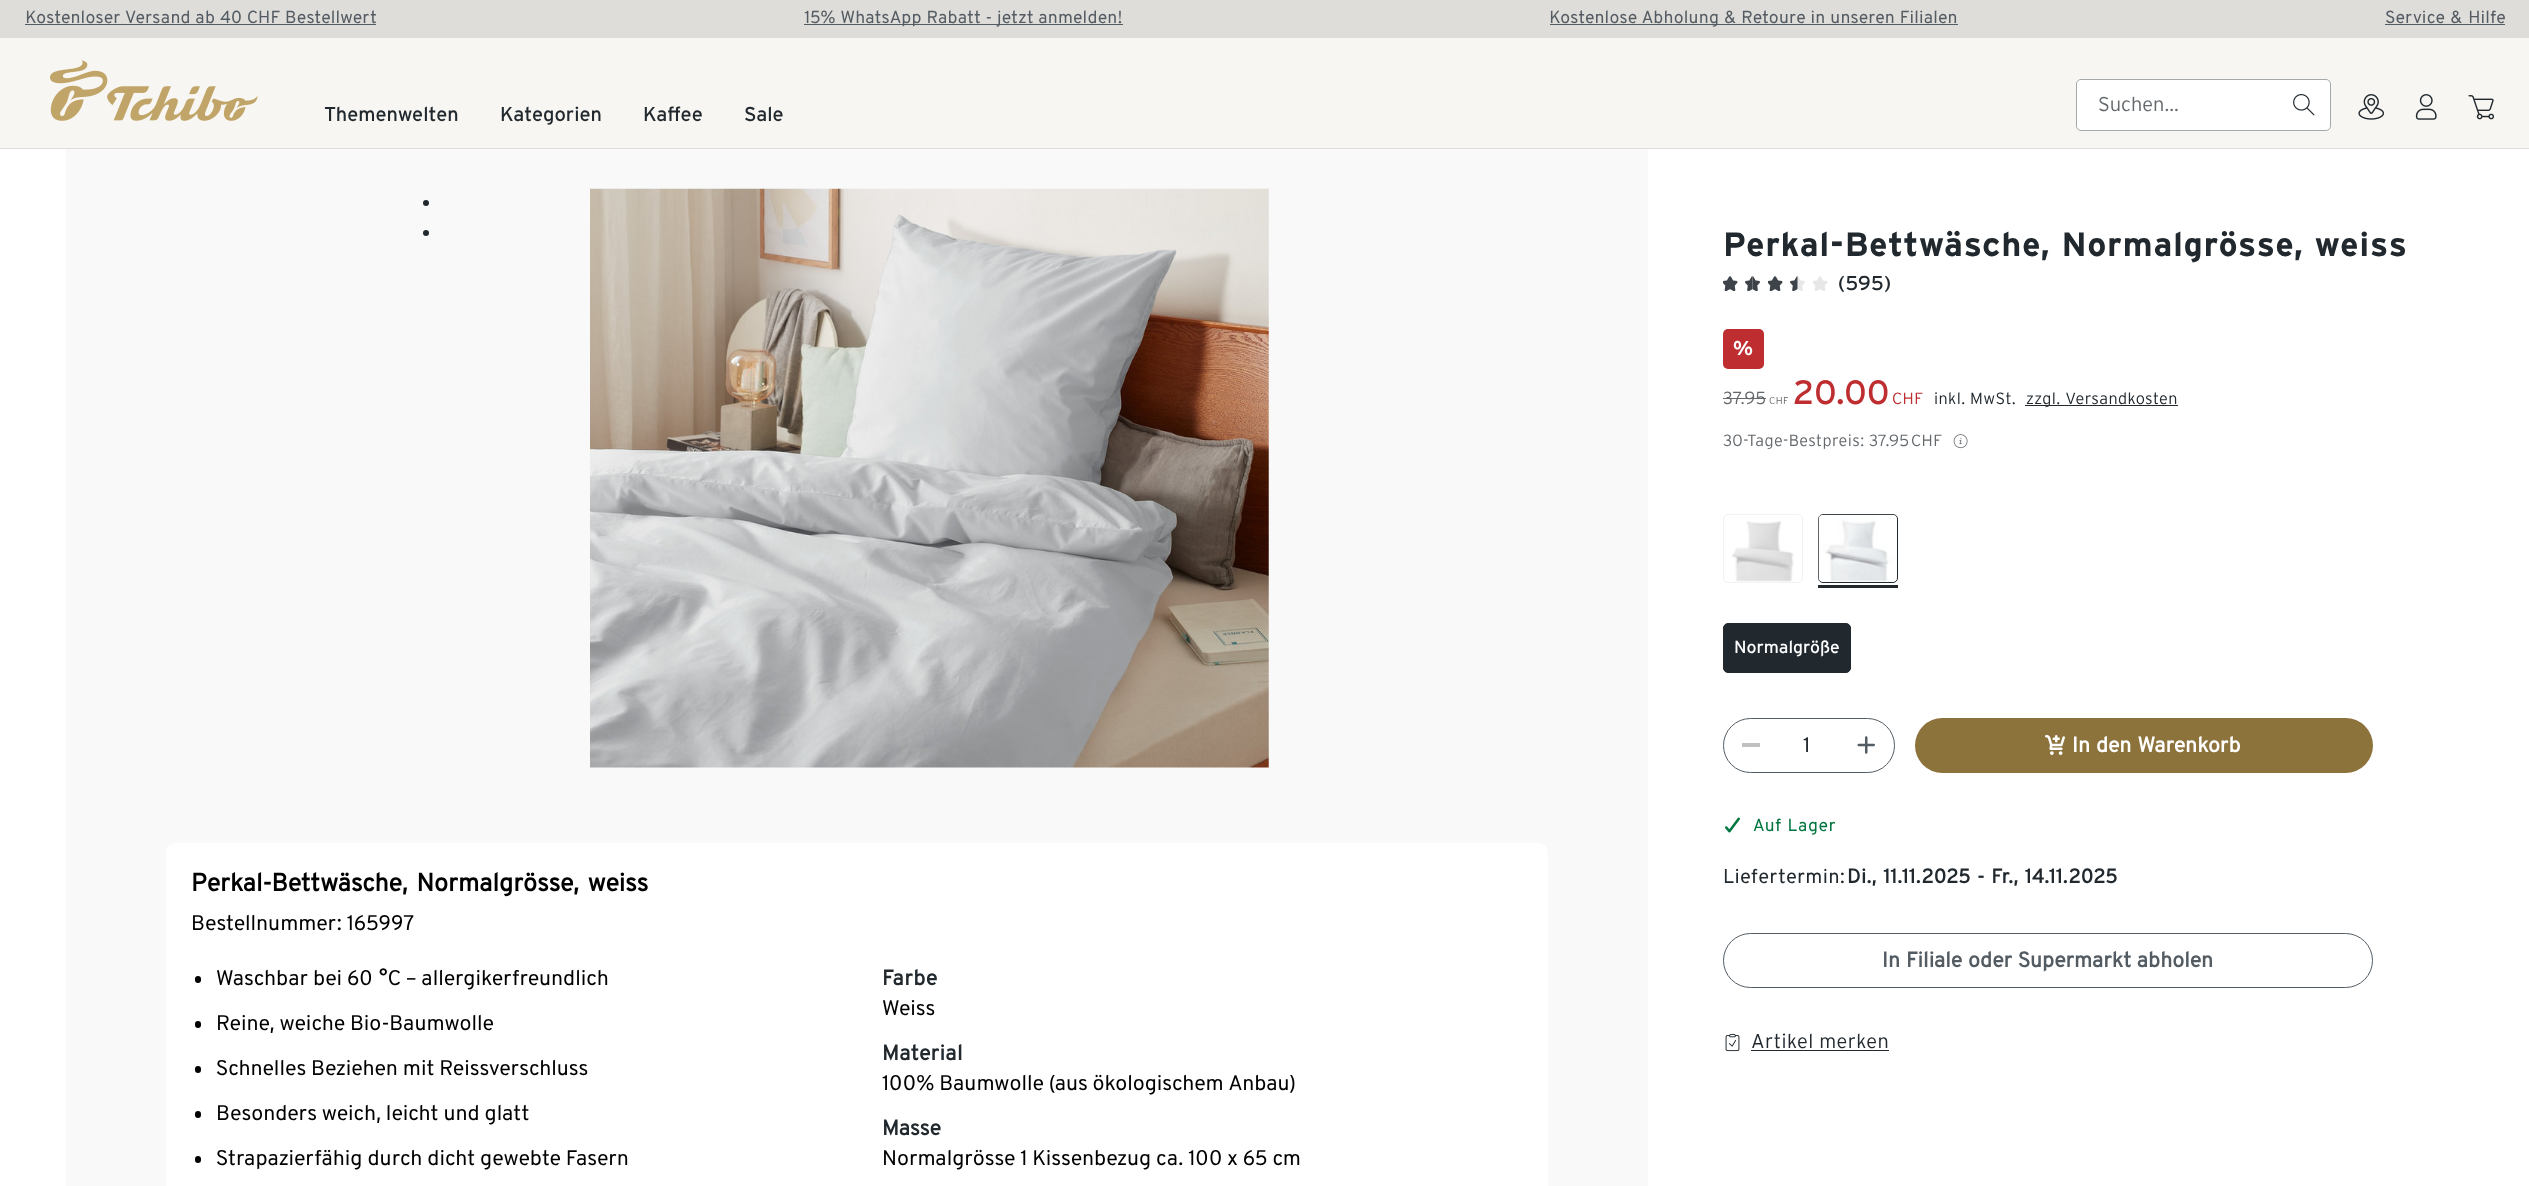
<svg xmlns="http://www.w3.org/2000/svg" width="2529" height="1186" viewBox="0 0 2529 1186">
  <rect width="100%" height="100%" fill="#fff"/>
  <path d="M0 38h2529v110H0z" fill="#f8f6f2"/>
  <path d="M0 0h2529v38H0z" fill="#dfddd9"/>
  <path d="M25 24h351v1H25z" fill="#545c63"/>
  <path d="M804 24h319v1H804z" fill="#545c63"/>
  <path d="M1550 24h408v1H1550z" fill="#545c63"/>
  <path d="M2385 24h120v1H2385z" fill="#545c63"/>
  <path d="M0 148h2529v1H0z" fill="#dfddd9"/>
  <image x="50" y="60" width="208" height="61" href="img/1.png"/>
  <rect x="2076.5" y="79.5" width="254" height="51" rx="4.5" fill="#fff" stroke="#a6a9ac"/>
  <path d="M2082 80H2290V130H2082C2080 130 2078 128 2078 126V84C2078 82 2080 80 2082 80Z" fill="#fff"/>
  <image x="2293" y="94" width="22" height="22" href="img/2.png"/>
  <image x="2358" y="94" width="27" height="26" href="img/3.png"/>
  <image x="2415" y="94" width="22" height="26" href="img/4.png"/>
  <image x="2468" y="95" width="27" height="25" href="img/5.png"/>
  <path d="M66 149h1582v1037H66z" fill="#f9f9f9"/>
  <circle cx="426" cy="203" r="3" fill="#21292f"/>
  <circle cx="426" cy="233" r="3" fill="#21292f"/>
  <image x="590" y="188" width="679" height="580" href="img/6.png"/>
  <image x="1723" y="276" width="15" height="15" href="img/7.png"/>
  <image x="1745" y="276" width="15" height="15" href="img/8.png"/>
  <image x="1768" y="276" width="15" height="15" href="img/7.png"/>
  <image x="1790" y="276" width="15" height="15" href="img/9.png"/>
  <image x="1813" y="276" width="15" height="15" href="img/10.png"/>
  <rect x="1723" y="329" width="41" height="40" rx="5" fill="#be2d2f"/>
  <path d="M1723 398h43v1H1723z" fill="#64696d"/>
  <path d="M2025 405h153v1H2025z" fill="#21292f"/>
  <image x="1953" y="434" width="15" height="15" href="img/11.png"/>
  <rect x="1723.5" y="514.5" width="79" height="68" rx="4.5" fill="none" stroke="#f2f2f2"/>
  <image x="1731" y="521" width="63" height="61" href="img/12.png"/>
  <path d="M1818 585h80v3H1818z" fill="#21292f"/>
  <rect x="1818.5" y="514.5" width="79" height="68" rx="4.5" fill="none" stroke="#21292f"/>
  <image x="1818" y="514" width="79" height="68" href="img/13.png"/>
  <rect x="1723.5" y="623.5" width="127" height="49" rx="4.5" fill="#21292f" stroke="#21292f"/>
  <rect x="1723.5" y="718.5" width="171" height="54" rx="27" fill="none" stroke="#545c63"/>
  <path d="M1742 743h18v4H1742z" fill="#c1c1c1"/>
  <image x="1857" y="736" width="18" height="18" href="img/14.png"/>
  <rect x="1915" y="718" width="458" height="55" rx="27.5" fill="#8c723b"/>
  <image x="2045" y="735" width="20" height="20" href="img/15.png"/>
  <image x="1725" y="817" width="15" height="16" href="img/16.png"/>
  <rect x="1723.5" y="933.5" width="649" height="54" rx="27" fill="none" stroke="#545c63"/>
  <image x="1725" y="1033" width="15" height="19" href="img/17.png"/>
  <path d="M1751 1050h138v1H1751z" fill="#21292f"/>
  <rect x="166" y="843" width="1382" height="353" rx="10" fill="#fff"/>
  <rect x="195" y="976" width="6" height="7" rx="3" fill="#000"/>
  <rect x="195" y="1021" width="6" height="7" rx="3" fill="#000"/>
  <rect x="195" y="1066" width="6" height="7" rx="3" fill="#000"/>
  <rect x="195" y="1111" width="6" height="7" rx="3" fill="#000"/>
  <rect x="195" y="1156" width="6" height="7" rx="3" fill="#000"/>
  <g font-family="'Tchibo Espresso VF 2'" font-size="17.5" fill="#545c63">
    <text x="25" y="23" word-spacing="0.5">Kostenloser Versand ab 40 CHF Bestellwert</text>
    <text x="804" y="23" word-spacing="0.5">15% WhatsApp Rabatt - jetzt anmelden!</text>
    <text x="1549" y="23" word-spacing="0.5">Kostenlose Abholung &amp; Retoure in unseren Filialen</text>
    <text x="2385" y="23" word-spacing="1">Service &amp; Hilfe</text>
  </g>
  <text x="2098" y="111" font-family="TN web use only" font-size="20" font-weight="300" fill="#64696d">Suchen...</text>
  <g font-family="TN web use only" font-size="20" fill="#21292f">
    <text x="324" y="121">Themenwelten</text>
    <text x="500" y="121">Kategorien</text>
    <text x="643" y="121">Kaffee</text>
    <text x="744" y="121">Sale</text>
  </g>
  <text x="1723" y="256" font-family="TN web use only" font-size="33.75" font-weight="bold" letter-spacing="1" fill="#21292f">Perkal-Bettwäsche, Normalgrösse, weiss</text>
  <text x="1838" y="290" font-family="TN web use only" font-size="20" letter-spacing="0.4" fill="#21292f">(595)</text>
  <text x="1733" y="355" font-family="TN web use only" font-size="20" font-weight="bold" letter-spacing="0.4" fill="#fff">%</text>
  <text x="1723" y="404" font-family="TN web use only" font-size="17.5" font-weight="300" letter-spacing="0.4" fill="#64696d">37.95</text>
  <text x="1769" y="404" font-family="TN web use only" font-size="10" font-weight="300" letter-spacing="0.4" fill="#64696d">CHF</text>
  <text x="1793" y="404" font-family="TN web use only" font-size="33.75" letter-spacing="0.4" fill="#be2d2f">20.00</text>
  <text x="1892" y="404" font-family="TN web use only" font-size="16.25" font-weight="300" letter-spacing="0.4" fill="#be2d2f">CHF</text>
  <g font-family="TN web use only" font-size="16.25" font-weight="300" letter-spacing="0.4" fill="#21292f">
    <text x="1934" y="404">inkl. MwSt.</text>
    <text x="2026" y="404">zzgl. Versandkosten</text>
  </g>
  <g font-family="TN web use only" font-size="16.25" font-weight="300" letter-spacing="0.4" fill="#64696d">
    <text x="1723" y="446">30-Tage-Bestpreis: 37.95</text>
    <text x="1911" y="446">CHF</text>
  </g>
  <text x="1734" y="653" font-family="TN web use only" font-size="17.5" fill="#fff">Normalgröße</text>
  <text x="1803" y="752" font-family="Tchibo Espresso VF" font-size="21.25" fill="#21292f">1</text>
  <text x="2072" y="752" word-spacing="1" font-family="Tchibo Espresso VF" font-size="21.25" font-weight="bold" fill="#fff">In den Warenkorb</text>
  <text x="1753" y="831" word-spacing="1" font-family="'Tchibo Espresso VF 2'" font-size="17.5" letter-spacing="0.4" fill="#00753f">Auf Lager</text>
  <text x="1723" y="883" font-family="Tchibo Espresso VF" font-size="20" letter-spacing="0.4" fill="#21292f">Liefertermin:</text>
  <text x="1847" y="883" word-spacing="1.5" font-family="Tchibo Espresso VF" font-size="20" font-weight="bold" letter-spacing="0.4" fill="#21292f">Di., 11.11.2025 - Fr., 14.11.2025</text>
  <text x="1882" y="967" word-spacing="1" font-family="Tchibo Espresso VF" font-size="21.25" font-weight="bold" fill="#545c63">In Filiale oder Supermarkt abholen</text>
  <text x="1751" y="1048" font-family="TN web use only" font-size="20" font-weight="300" letter-spacing="0.4" fill="#21292f">Artikel merken</text>
  <text x="191" y="891" word-spacing="3" font-family="Tchibo Espresso VF" font-size="25" font-weight="bold" fill="#000">Perkal-Bettwäsche, Normalgrösse, weiss</text>
  <g font-family="Tchibo Espresso VF" font-size="21.25" fill="#000">
    <text x="191" y="930">Bestellnummer: 165997</text>
    <text x="216" y="985">Waschbar bei 60 °C – allergikerfreundlich</text>
    <text x="216" y="1030">Reine, weiche Bio-Baumwolle</text>
    <text x="216" y="1075">Schnelles Beziehen mit Reissverschluss</text>
    <text x="216" y="1120">Besonders weich, leicht und glatt</text>
    <text x="216" y="1165">Strapazierfähig durch dicht gewebte Fasern</text>
  </g>
  <text x="882" y="985" font-family="Tchibo Espresso VF" font-size="21.25" font-weight="bold" letter-spacing="0.4" fill="#21292f">Farbe</text>
  <text x="882" y="1015" font-family="Tchibo Espresso VF" font-size="21.25" fill="#000">Weiss</text>
  <text x="882" y="1060" font-family="Tchibo Espresso VF" font-size="21.25" font-weight="bold" letter-spacing="0.4" fill="#21292f">Material</text>
  <text x="882" y="1090" font-family="Tchibo Espresso VF" font-size="21.25" fill="#000">100% Baumwolle (aus ökologischem Anbau)</text>
  <text x="882" y="1135" font-family="Tchibo Espresso VF" font-size="21.25" font-weight="bold" fill="#21292f">Masse</text>
  <text x="882" y="1165" font-family="Tchibo Espresso VF" font-size="21.25" fill="#000">Normalgrösse 1 Kissenbezug ca. 100 x 65 cm</text>
</svg>
